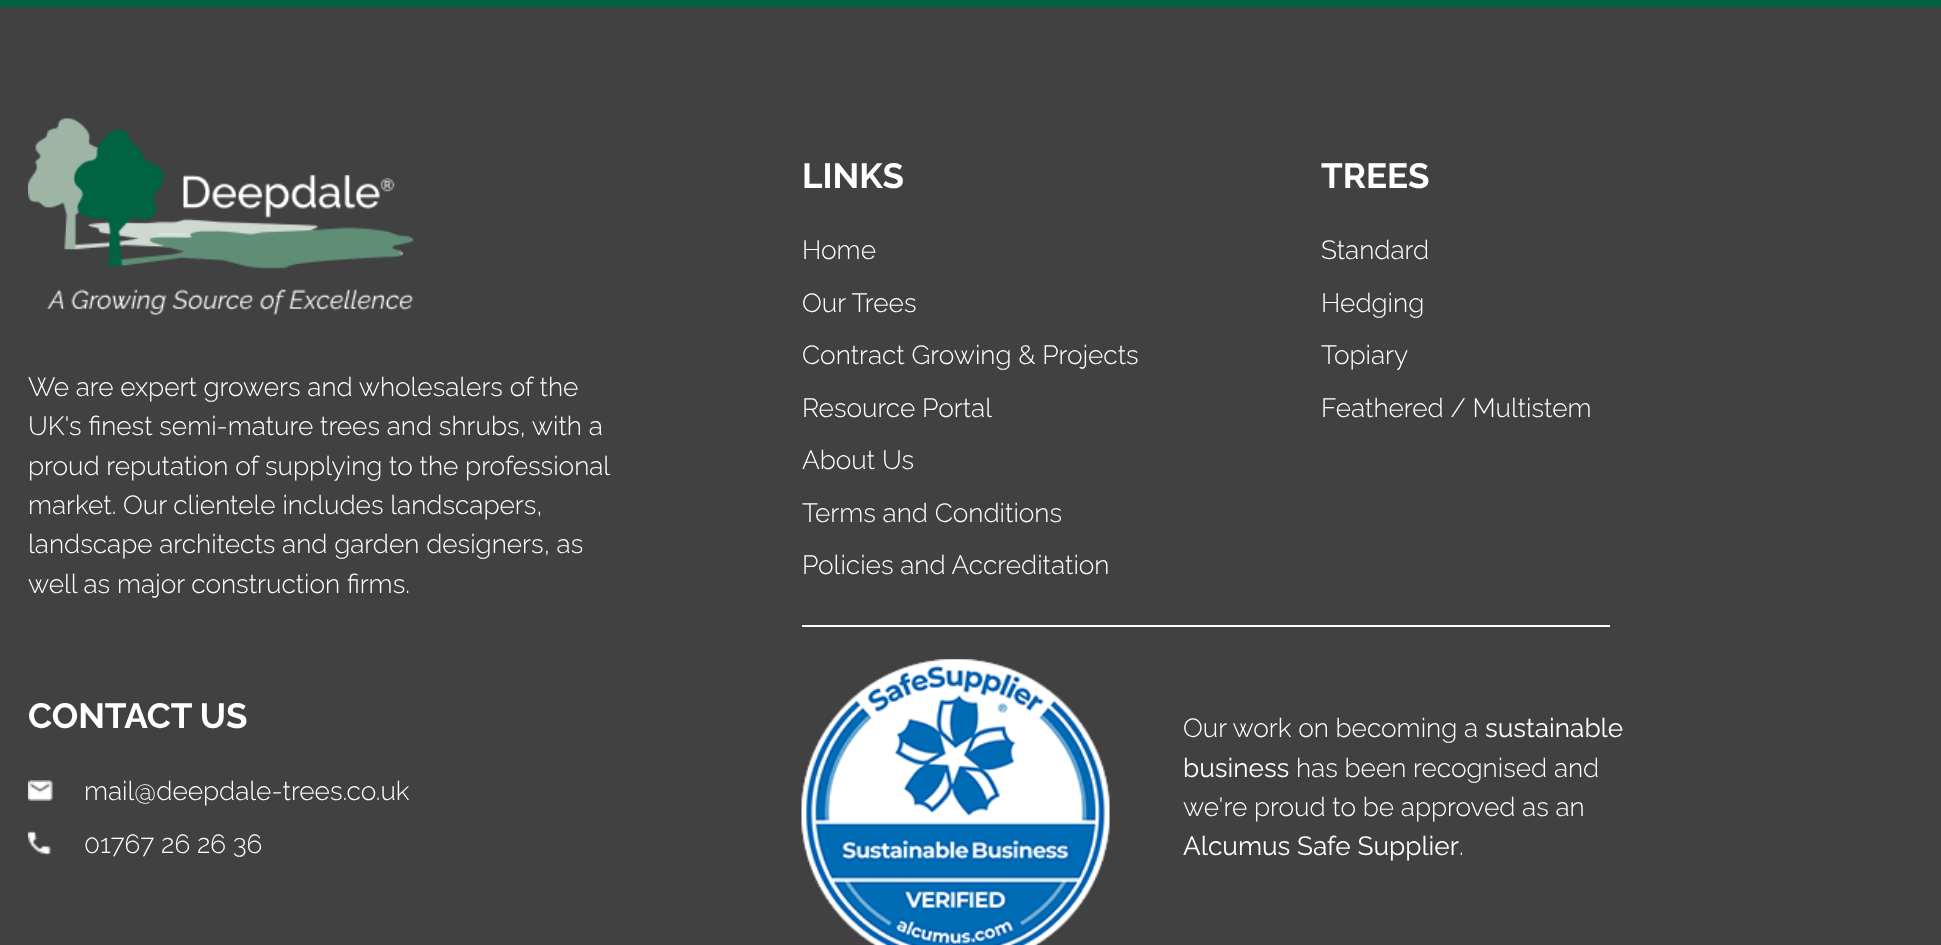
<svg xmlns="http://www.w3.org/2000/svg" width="1941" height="945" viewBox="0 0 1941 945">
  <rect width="100%" height="100%" fill="#026143"/>
  <path d="M0 7h1941v938H0z" fill="#414141"/>
  <image x="28" y="118" width="385" height="197" href="img/1.png"/>
  <image x="28" y="780" width="25" height="21" href="img/2.png"/>
  <image x="28" y="830" width="23" height="26" href="img/3.png"/>
  <image x="801" y="659" width="309" height="286" href="img/4.png"/>
  <path d="M802 625h808v2H802z" fill="#fff"/>
  <text x="802" y="188" font-family="Raleway" font-size="35" font-weight="bold" fill="#fff">LINKS</text>
  <g font-family="Raleway" font-size="26.25" font-weight="300" fill="#fff">
    <text x="802" y="259">Home</text>
    <text x="802" y="312">Our Trees</text>
    <text x="802" y="364">Contract Growing &amp; Projects</text>
    <text x="802" y="417">Resource Portal</text>
    <text x="802" y="469">About Us</text>
    <text x="802" y="522">Terms and Conditions</text>
    <text x="802" y="574">Policies and Accreditation</text>
  </g>
  <text x="1321" y="188" font-family="Raleway" font-size="35" font-weight="bold" fill="#fff">TREES</text>
  <g font-family="Raleway" font-size="26.25" font-weight="300" fill="#fff">
    <text x="1321" y="259">Standard</text>
    <text x="1321" y="312">Hedging</text>
    <text x="1321" y="364">Topiary</text>
    <text x="1321" y="417">Feathered / Multistem</text>
    <text x="28" y="396">We are expert growers and wholesalers of the</text>
    <text x="28" y="435">UK's finest semi-mature trees and shrubs, with a</text>
    <text x="28" y="475">proud reputation of supplying to the professional</text>
    <text x="28" y="514">market. Our clientele includes landscapers,</text>
    <text x="28" y="553">landscape architects and garden designers, as</text>
    <text x="28" y="593">well as major construction firms.</text>
  </g>
  <text x="28" y="728" font-family="Raleway" font-size="35" font-weight="bold" fill="#fff">CONTACT US</text>
  <g font-family="Raleway" font-size="26.25" font-weight="300" fill="#fff">
    <text x="84" y="800">mail@deepdale-trees.co.uk</text>
    <text x="84" y="853">01767 26 26 36</text>
    <text x="1183" y="737">Our work on becoming a</text>
  </g>
  <g font-family="Raleway" font-size="26.25" fill="#fff">
    <text x="1485" y="737">sustainable</text>
    <text x="1183" y="777">business</text>
  </g>
  <g font-family="Raleway" font-size="26.25" font-weight="300" fill="#fff">
    <text x="1296" y="777">has been recognised and</text>
    <text x="1183" y="816">we're proud to be approved as an</text>
  </g>
  <text x="1183" y="855" font-family="Raleway" font-size="26.25" fill="#fff">Alcumus Safe Supplier</text>
  <text x="1459" y="855" font-family="Raleway" font-size="26.25" font-weight="300" fill="#fff">.</text>
</svg>
